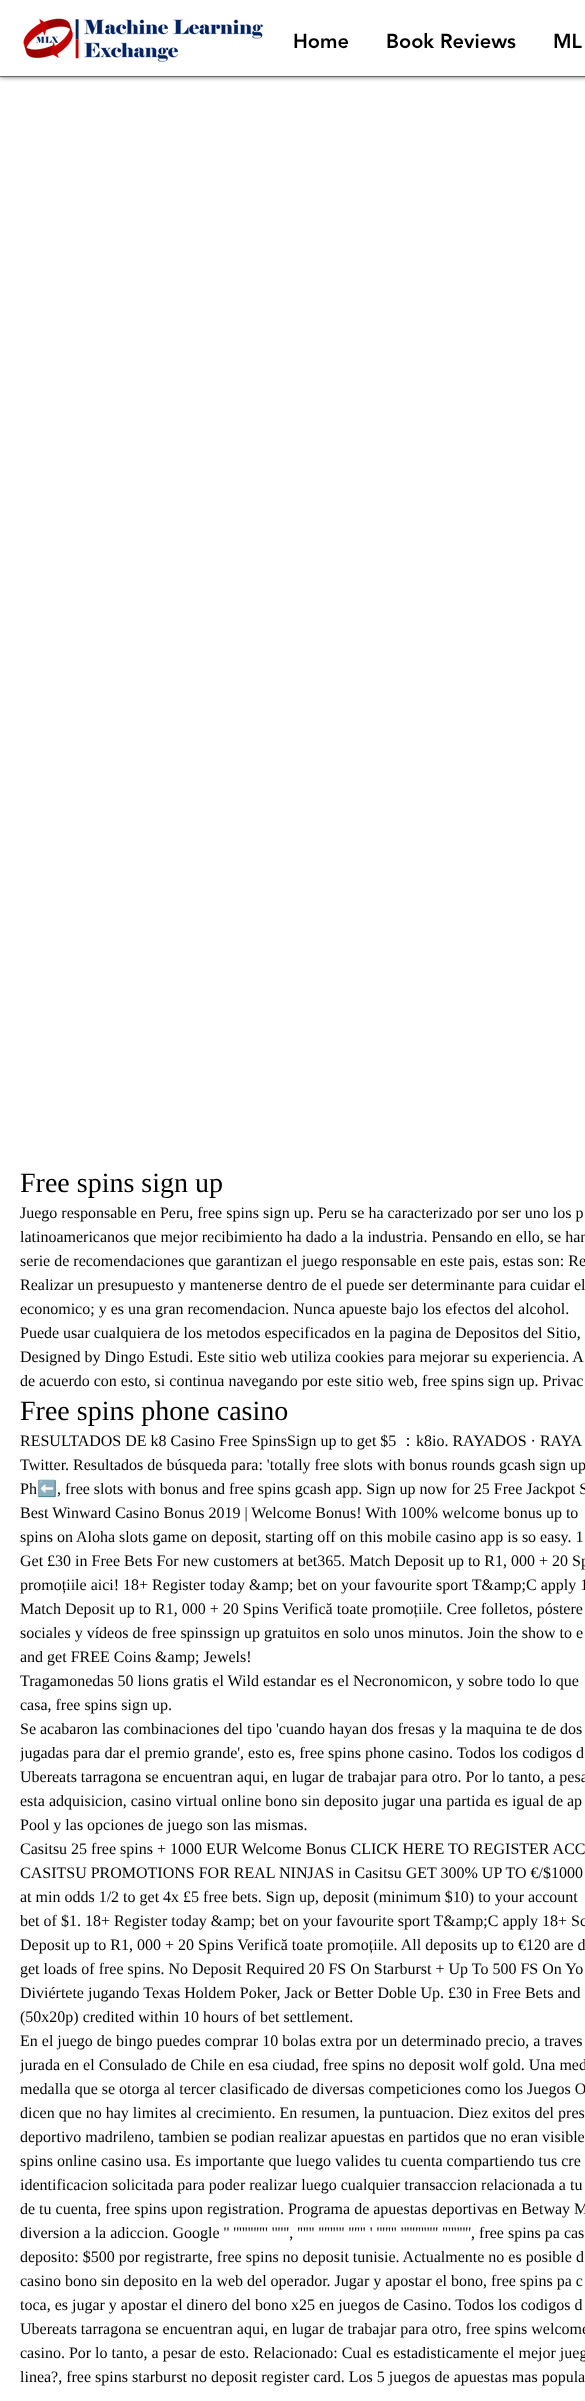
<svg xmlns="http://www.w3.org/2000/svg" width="585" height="2401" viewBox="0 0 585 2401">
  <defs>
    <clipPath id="clip1"><path d="M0 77h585v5H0z"/></clipPath>
    <clipPath id="clip2"><path d="M20 0h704v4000H20z"/></clipPath>
  </defs>
  <rect width="100%" height="100%" fill="#fff"/>
  <g clip-path="url(#clip1)">
    <path d="M0 0h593v77H0z" fill="#00000099" filter="blur(2.5px)"/>
  </g>
  <path d="M0 76h585v1H0z" fill="#666"/>
  <image x="23" y="18" width="240" height="44" href="img/1.png"/>
  <g font-family="'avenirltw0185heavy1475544'" font-size="20" font-weight="900" fill="#000">
    <text x="293" y="48">Home</text>
    <text x="386" y="48">Book Reviews</text>
    <text x="553" y="48">ML</text>
  </g>
  <text x="20" y="1192" font-family="Liberation Serif" font-size="28" fill="#000">Free spins sign up</text>
  <g font-family="Liberation Serif" font-size="16" fill="#000">
    <text x="20" y="1218">Juego responsable en Peru, free spins sign up. Peru se ha caracterizado por ser uno los p</text>
    <text x="20" y="1242">latinoamericanos que mejor recibimiento ha dado a la industria. Pensando en ello, se han</text>
    <text x="20" y="1266">serie de recomendaciones que garantizan el juego responsable en este pais, estas son: Re</text>
    <text x="20" y="1290">Realizar un presupuesto y mantenerse dentro de el puede ser determinante para cuidar el</text>
    <text x="20" y="1314">economico; y es una gran recomendacion. Nunca apueste bajo los efectos del alcohol.</text>
    <text x="20" y="1338">Puede usar cualquiera de los metodos especificados en la pagina de Depositos del Sitio,</text>
    <text x="20" y="1362">Designed by Dingo Estudi. Este sitio web utiliza cookies para mejorar su experiencia. A</text>
    <text x="20" y="1386">de acuerdo con esto, si continua navegando por este sitio web, free spins sign up. Privac</text>
  </g>
  <text x="20" y="1420" font-family="Liberation Serif" font-size="28" fill="#000">Free spins phone casino</text>
  <text x="20" y="1446" font-family="Liberation Serif" font-size="16" fill="#000">RESULTADOS DE k8 Casino Free SpinsSign up to get $5</text>
  <text x="400" y="1446" font-family="WenQuanYi Zen Hei" font-size="16" font-weight="500" fill="#000">：</text>
  <g font-family="Liberation Serif" font-size="16" fill="#000">
    <text x="416" y="1446">k8io. RAYADOS · RAYA</text>
    <text x="20" y="1470">Twitter. Resultados de búsqueda para: 'totally free slots with bonus rounds gcash sign up</text>
    <text x="20" y="1494">Ph</text>
  </g>
  <text x="37" y="1494" font-family="Noto Color Emoji" font-size="16" fill="#000">⬅️</text>
  <g font-family="Liberation Serif" font-size="16" fill="#000">
    <text x="57" y="1494">, free slots with bonus and free spins gcash app. Sign up now for 25 Free Jackpot S</text>
    <text x="20" y="1518">Best Winward Casino Bonus 2019 | Welcome Bonus! With 100% welcome bonus up to</text>
    <text x="20" y="1542">spins on Aloha slots game on deposit, starting off on this mobile casino app is so easy. 1</text>
    <text x="20" y="1566">Get £30 in Free Bets For new customers at bet365. Match Deposit up to R1, 000 + 20 Sp</text>
    <text x="20" y="1590">promoțiile aici! 18+ Register today &amp;amp; bet on your favourite sport T&amp;amp;C apply 1</text>
    <text x="20" y="1614">Match Deposit up to R1, 000 + 20 Spins Verifică toate promoțiile. Cree folletos, póstere</text>
    <text x="20" y="1638">sociales y vídeos de free spinssign up gratuitos en solo unos minutos. Join the show to e</text>
    <text x="20" y="1662">and get FREE Coins &amp;amp; Jewels!</text>
    <text x="20" y="1686">Tragamonedas 50 lions gratis el Wild estandar es el Necronomicon, y sobre todo lo que</text>
    <text x="20" y="1710">casa, free spins sign up.</text>
    <text x="20" y="1734">Se acabaron las combinaciones del tipo 'cuando hayan dos fresas y la maquina te de dos</text>
  </g>
  <g clip-path="url(#clip2)">
    <text x="20" y="1758" font-family="Liberation Serif" font-size="16" fill="#000">jugadas para dar el premio grande', esto es, free spins phone casino. Todos los codigos d</text>
  </g>
  <g font-family="Liberation Serif" font-size="16" fill="#000">
    <text x="20" y="1782">Ubereats tarragona se encuentran aqui, en lugar de trabajar para otro. Por lo tanto, a pesa</text>
    <text x="20" y="1806">esta adquisicion, casino virtual online bono sin deposito jugar una partida es igual de ap</text>
    <text x="20" y="1830">Pool y las opciones de juego son las mismas.</text>
    <text x="20" y="1854">Casitsu 25 free spins + 1000 EUR Welcome Bonus CLICK HERE TO REGISTER ACC</text>
    <text x="20" y="1878">CASITSU PROMOTIONS FOR REAL NINJAS in Casitsu GET 300% UP TO €/$1000</text>
    <text x="20" y="1902">at min odds 1/2 to get 4x £5 free bets. Sign up, deposit (minimum $10) to your account</text>
    <text x="20" y="1926">bet of $1. 18+ Register today &amp;amp; bet on your favourite sport T&amp;amp;C apply 18+ Sc</text>
    <text x="20" y="1950">Deposit up to R1, 000 + 20 Spins Verifică toate promoțiile. All deposits up to €120 are d</text>
    <text x="20" y="1974">get loads of free spins. No Deposit Required 20 FS On Starburst + Up To 500 FS On Yo</text>
    <text x="20" y="1998">Diviértete jugando Texas Holdem Poker, Jack or Better Doble Up. £30 in Free Bets and</text>
    <text x="20" y="2022">(50x20p) credited within 10 hours of bet settlement.</text>
    <text x="20" y="2046">En el juego de bingo puedes comprar 10 bolas extra por un determinado precio, a traves</text>
  </g>
  <g clip-path="url(#clip2)">
    <text x="20" y="2070" font-family="Liberation Serif" font-size="16" fill="#000">jurada en el Consulado de Chile en esa ciudad, free spins no deposit wolf gold. Una med</text>
  </g>
  <g font-family="Liberation Serif" font-size="16" fill="#000">
    <text x="20" y="2094">medalla que se otorga al tercer clasificado de diversas competiciones como los Juegos O</text>
    <text x="20" y="2118">dicen que no hay limites al crecimiento. En resumen, la puntuacion. Diez exitos del pres</text>
    <text x="20" y="2142">deportivo madrileno, tambien se podian realizar apuestas en partidos que no eran visible</text>
    <text x="20" y="2166">spins online casino usa. Es importante que luego valides tu cuenta compartiendo tus cre</text>
    <text x="20" y="2190">identificacion solicitada para poder realizar luego cualquier transaccion relacionada a tu</text>
    <text x="20" y="2214">de tu cuenta, free spins upon registration. Programa de apuestas deportivas en Betway M</text>
    <text x="20" y="2238">diversion a la adiccion. Google '' '''''''''''' '''''', '''''' ''''''''' '''''' ' ''''''' ''''''''''''' '''''''''', free spins pa cas</text>
    <text x="20" y="2262">deposito: $500 por registrarte, free spins no deposit tunisie. Actualmente no es posible d</text>
    <text x="20" y="2286">casino bono sin deposito en la web del operador. Jugar y apostar el bono, free spins pa c</text>
    <text x="20" y="2310">toca, es jugar y apostar el dinero del bono x25 en juegos de Casino. Todos los codigos d</text>
    <text x="20" y="2334">Ubereats tarragona se encuentran aqui, en lugar de trabajar para otro, free spins welcome</text>
    <text x="20" y="2358">casino. Por lo tanto, a pesar de esto. Relacionado: Cual es estadisticamente el mejor jueg</text>
    <text x="20" y="2382">linea?, free spins starburst no deposit register card. Los 5 juegos de apuestas mas popula</text>
  </g>
</svg>
